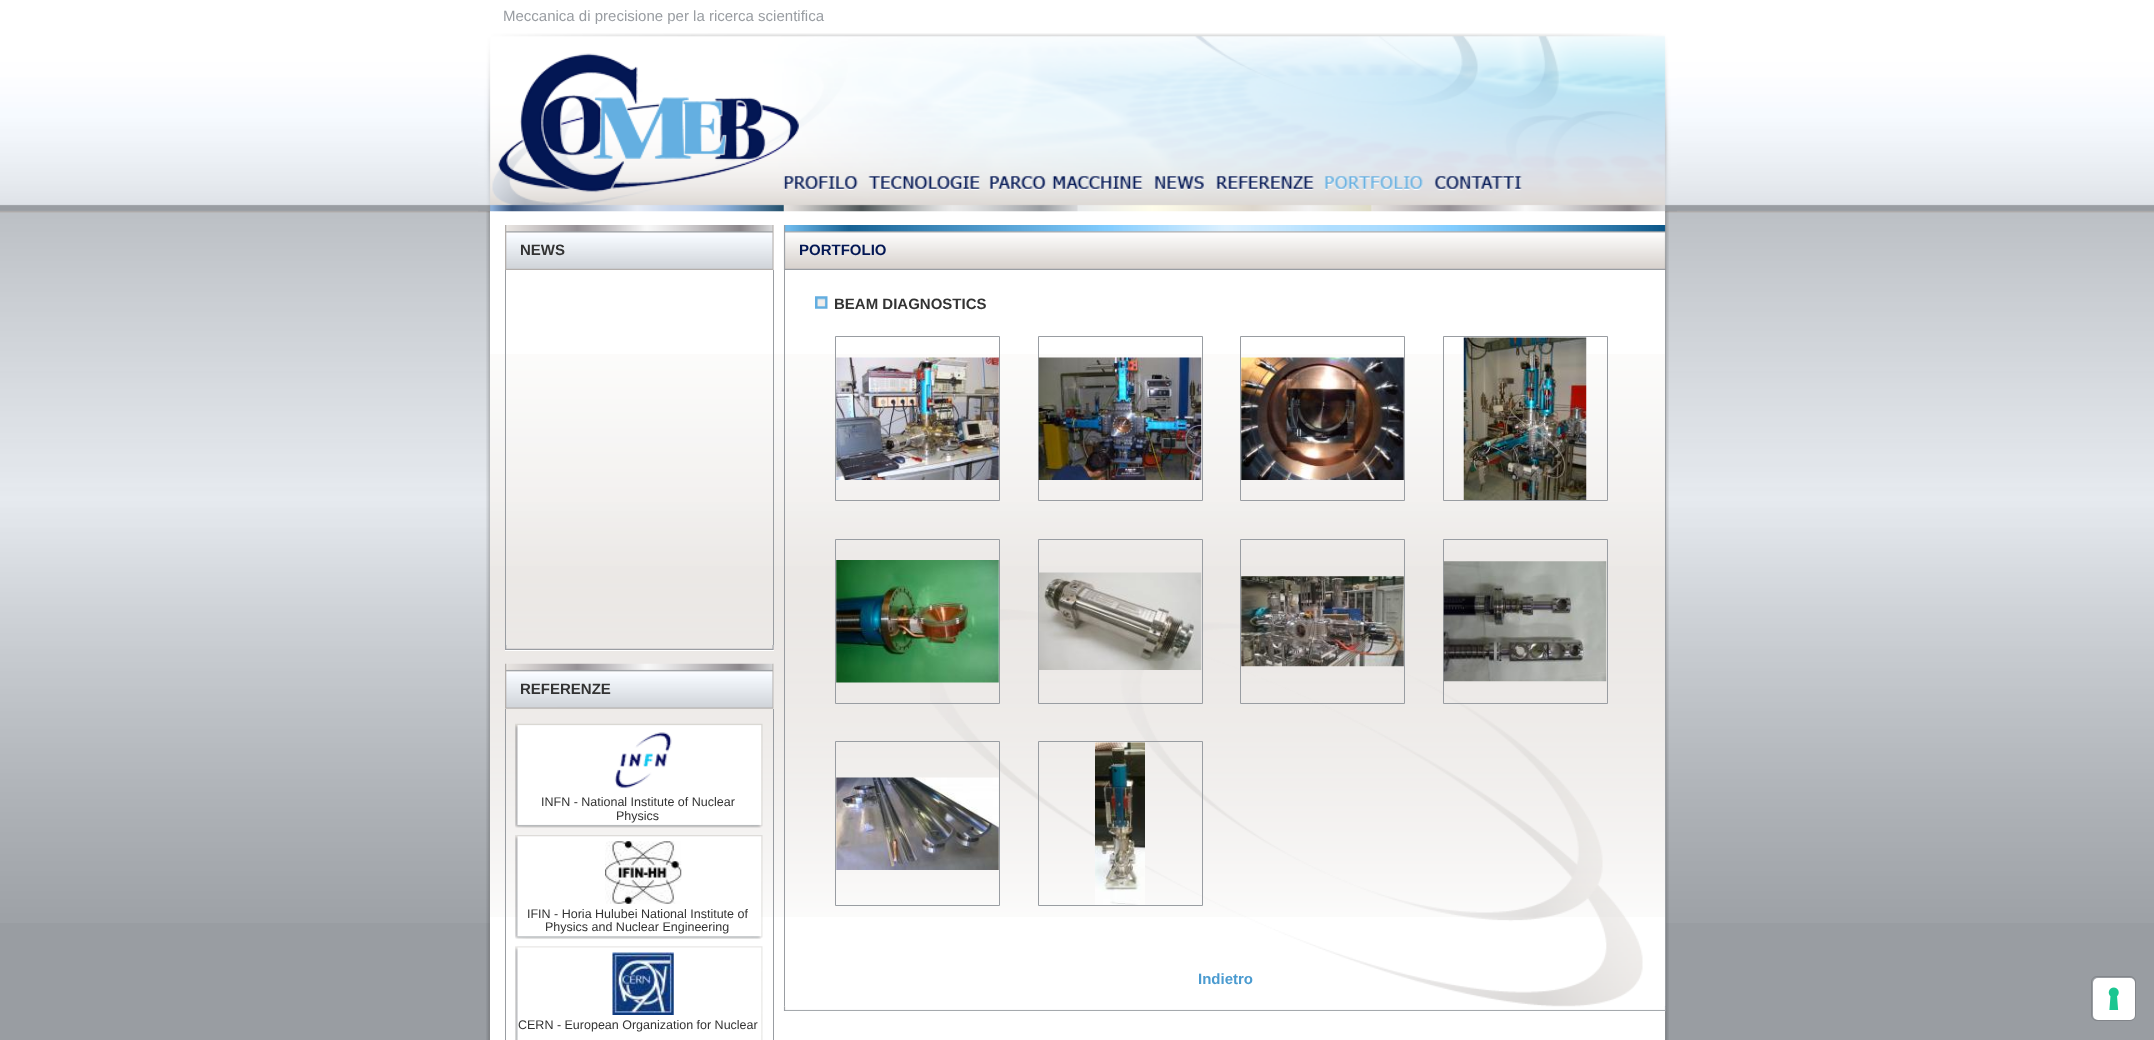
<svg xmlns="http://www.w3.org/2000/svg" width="2154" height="1040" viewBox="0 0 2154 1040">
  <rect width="100%" height="100%" fill="#999da2"/>
  <image x="0" y="0" width="2154" height="923" href="img/1.png"/>
  <image x="486" y="211" width="1183" height="829" href="img/10.png"/>
  <path d="M490 211h1175v829H490z" fill="#fff"/>
  <image x="478" y="33" width="1199" height="179" href="img/2.png"/>
  <image x="783" y="176" width="75" height="14" href="img/3.png"/>
  <image x="868" y="176" width="112" height="14" href="img/4.png"/>
  <image x="989" y="176" width="154" height="14" href="img/5.png"/>
  <image x="1154" y="176" width="50" height="14" href="img/6.png"/>
  <image x="1216" y="176" width="98" height="14" href="img/7.png"/>
  <image x="1324" y="176" width="99" height="14" href="img/8.png"/>
  <image x="1434" y="176" width="88" height="15" href="img/9.png"/>
  <image x="490" y="354" width="1175" height="563" href="img/11.png"/>
  <image x="505" y="225" width="269" height="45" href="img/12.png"/>
  <path d="M773 270h1v375H773z" fill="#999da2"/>
  <path d="M505 270h1v375H505z" fill="#999da2"/>
  <image x="505" y="645" width="269" height="5" href="img/13.png"/>
  <path d="M505 650h269v1H505z" fill="#fff"/>
  <path d="M505 664h269v45H505z" fill="#fff"/>
  <image x="505" y="663" width="269" height="46" href="img/14.png"/>
  <path d="M773 709h1v331H773z" fill="#999da2"/>
  <path d="M505 709h1v331H505z" fill="#999da2"/>
  <image x="515" y="723" width="248" height="105" href="img/15.png"/>
  <image x="614" y="732" width="58" height="57" href="img/16.png"/>
  <image x="515" y="835" width="248" height="104" href="img/17.png"/>
  <image x="605" y="841" width="77" height="63" href="img/18.png"/>
  <image x="515" y="946" width="248" height="94" href="img/19.png"/>
  <image x="612" y="952" width="62" height="63" href="img/20.png"/>
  <image x="783" y="225" width="883" height="45" href="img/21.png"/>
  <image x="930" y="609" width="713" height="398" href="img/22.png"/>
  <path d="M1665 270h1v736H1665z" fill="#999da2"/>
  <path d="M784 270h1v736H784z" fill="#999da2"/>
  <image x="815" y="296" width="13" height="13" href="img/23.png"/>
  <path d="M835.5 336.5h164v164H835.5z" fill="none" stroke="#999da2"/>
  <image x="836" y="357" width="163" height="123" href="img/24.png"/>
  <path d="M1038.5 336.5h164v164H1038.5z" fill="none" stroke="#999da2"/>
  <image x="1038" y="357" width="164" height="123" href="img/25.png"/>
  <path d="M1240.5 336.5h164v164H1240.5z" fill="none" stroke="#999da2"/>
  <image x="1241" y="357" width="163" height="123" href="img/26.png"/>
  <path d="M1443.5 336.5h164v164H1443.5z" fill="none" stroke="#999da2"/>
  <image x="1463" y="337" width="124" height="163" href="img/27.png"/>
  <path d="M835.5 539.5h164v164H835.5z" fill="none" stroke="#999da2"/>
  <image x="836" y="560" width="163" height="123" href="img/28.png"/>
  <path d="M1038.5 539.5h164v164H1038.5z" fill="none" stroke="#999da2"/>
  <image x="1038" y="572" width="164" height="98" href="img/29.png"/>
  <path d="M1240.5 539.5h164v164H1240.5z" fill="none" stroke="#999da2"/>
  <image x="1241" y="576" width="163" height="91" href="img/30.png"/>
  <path d="M1443.5 539.5h164v164H1443.5z" fill="none" stroke="#999da2"/>
  <image x="1443" y="561" width="164" height="121" href="img/31.png"/>
  <path d="M835.5 741.5h164v164H835.5z" fill="none" stroke="#999da2"/>
  <image x="836" y="777" width="163" height="93" href="img/32.png"/>
  <path d="M1038.5 741.5h164v164H1038.5z" fill="none" stroke="#999da2"/>
  <image x="1095" y="742" width="50" height="163" href="img/33.png"/>
  <image x="783" y="1006" width="883" height="6" href="img/34.png"/>
  <path d="M784 1011h881v1H784z" fill="#fff"/>
  <rect x="2091.5" y="976.5" width="44" height="44" rx="5.5" fill="none" stroke="#82858a"/>
  <rect x="2093" y="978" width="42" height="42" rx="5" fill="#fff"/>
  <image x="2108" y="987" width="11" height="23" href="img/35.png"/>
  <text x="503" y="21" font-family="Liberation Sans" font-size="15" fill="#999da2">Meccanica di precisione per la ricerca scientifica</text>
  <g font-family="Liberation Sans" font-size="15" font-weight="bold" fill="#333">
    <text x="520" y="255">NEWS</text>
    <text x="520" y="694">REFERENZE</text>
  </g>
  <g font-family="Liberation Sans" font-size="12.5" fill="#333">
    <text x="541" y="806">INFN - National Institute of Nuclear</text>
    <text x="616" y="820">Physics</text>
    <text x="527" y="918">IFIN - Horia Hulubei National Institute of</text>
    <text x="545" y="931">Physics and Nuclear Engineering</text>
    <text x="518" y="1029">CERN - European Organization for Nuclear</text>
  </g>
  <text x="799" y="255" font-family="Liberation Sans" font-size="15" font-weight="bold" fill="#031754">PORTFOLIO</text>
  <text x="834" y="309" font-family="Liberation Sans" font-size="15" font-weight="bold" fill="#333">BEAM DIAGNOSTICS</text>
  <text x="1198" y="984" font-family="Liberation Sans" font-size="15" font-weight="bold" fill="#4b9bd0">Indietro</text>
</svg>
